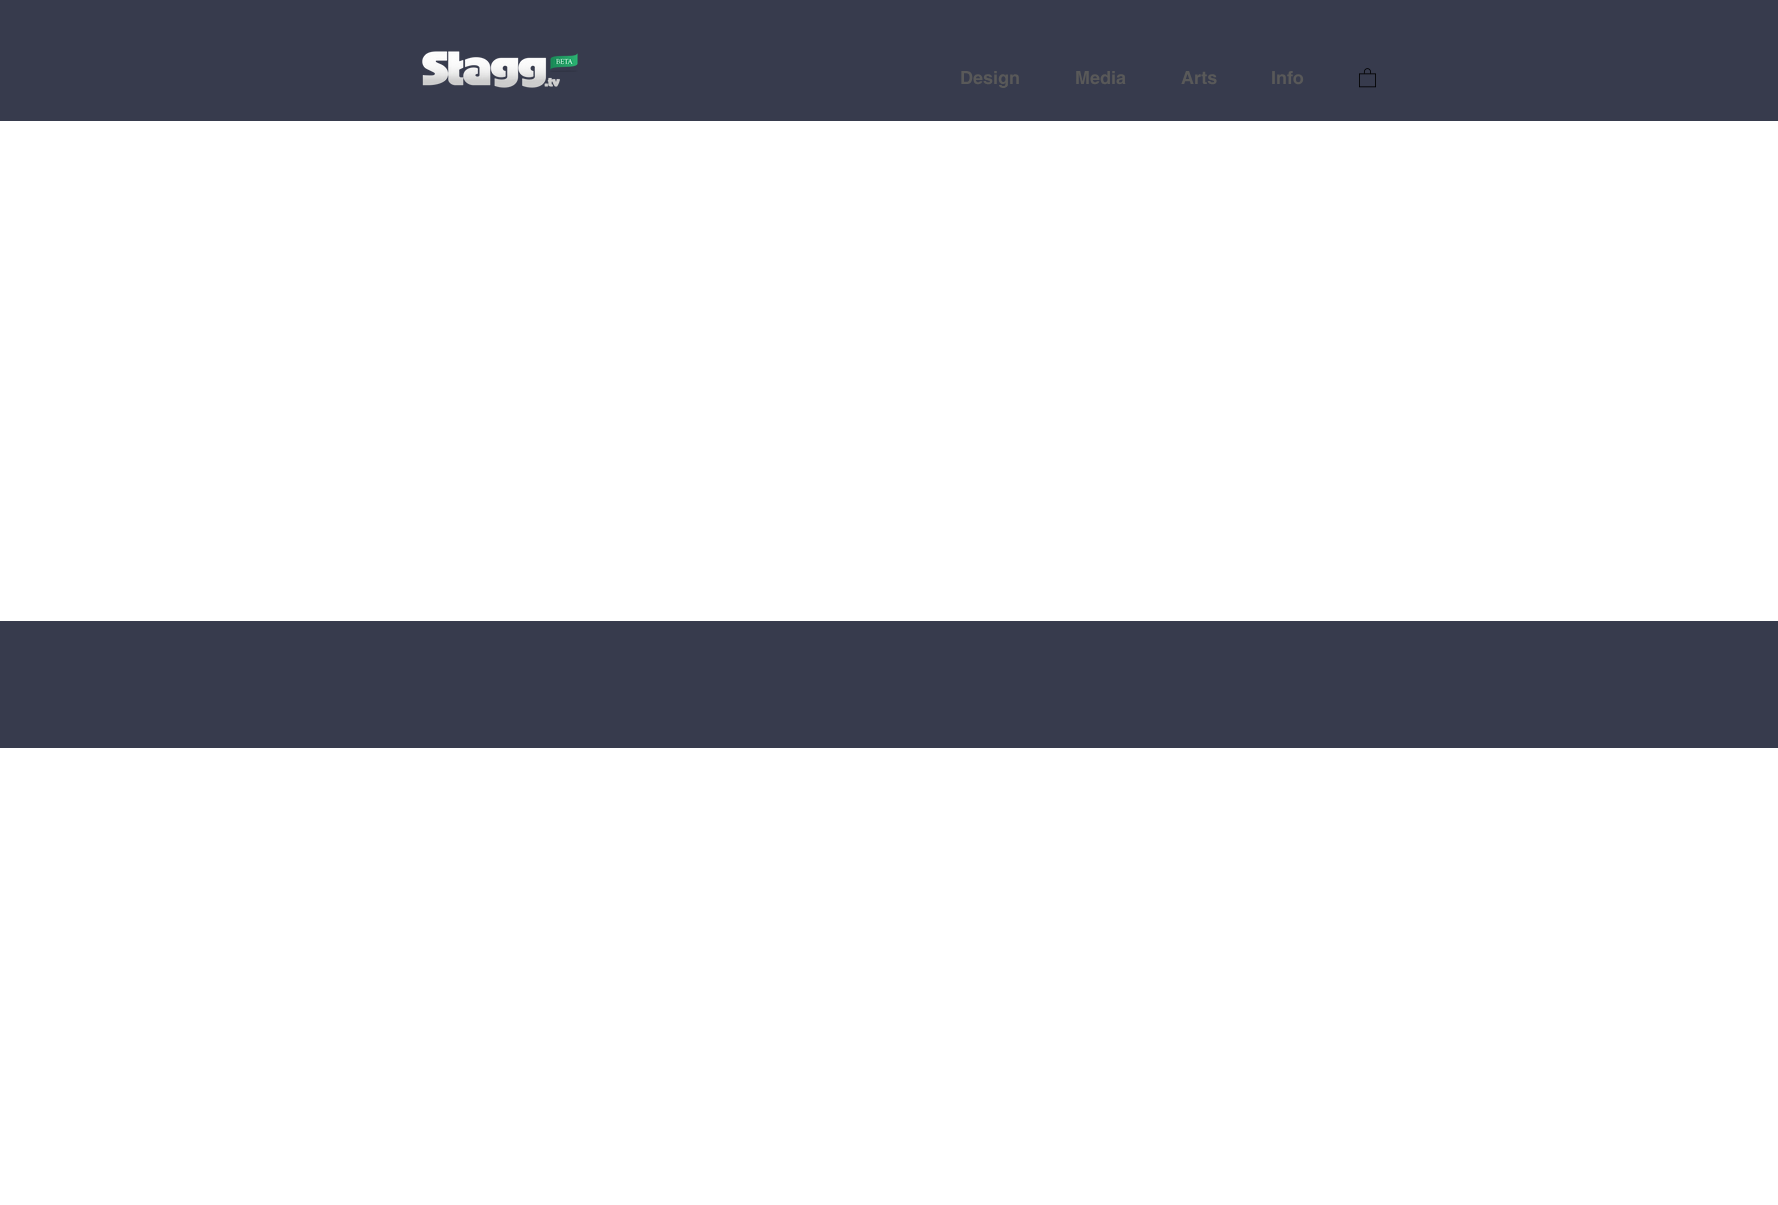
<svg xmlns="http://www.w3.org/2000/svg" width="1778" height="1205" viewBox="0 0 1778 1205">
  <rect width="100%" height="100%" fill="#fff"/>
  <path d="M0 0h1778v121H0z" fill="#373b4d"/>
  <image x="550" y="53" width="28" height="19" href="img/2.png"/>
  <image x="422" y="51" width="138" height="37" href="img/1.png"/>
  <image x="1359" y="68" width="17" height="20" href="img/3.png"/>
  <path d="M0 621h1778v127H0z" fill="#373b4d"/>
  <g font-family="helvetica" font-size="18" font-weight="bold" fill="#595959">
    <text x="960" y="84">Design</text>
    <text x="1075" y="84">Media</text>
    <text x="1181" y="84">Arts</text>
    <text x="1271" y="84">Info</text>
  </g>
</svg>
